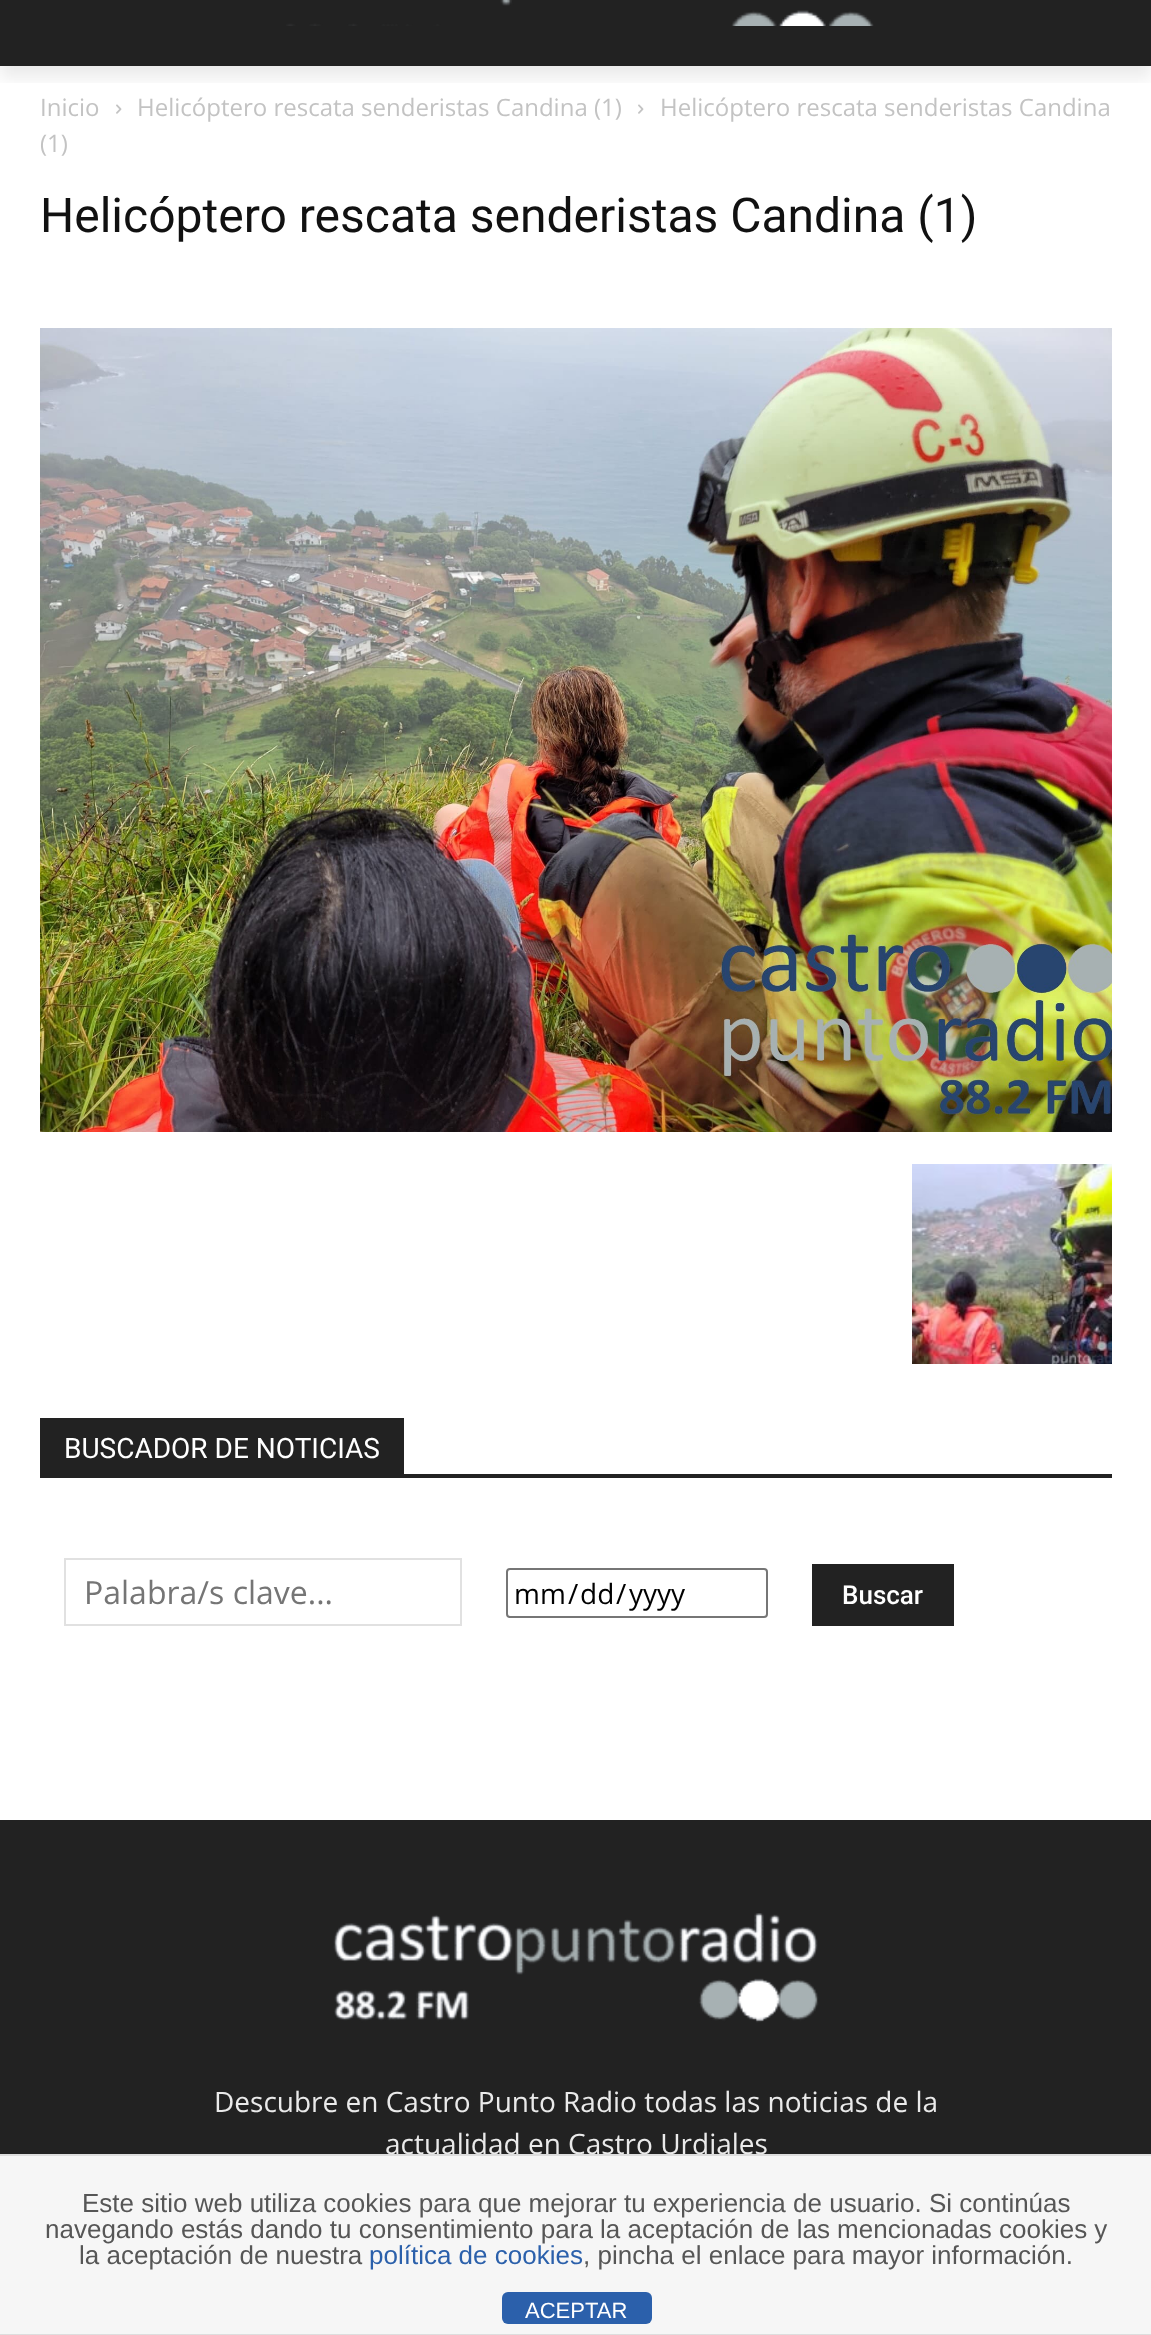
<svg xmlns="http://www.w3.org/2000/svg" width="1151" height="2335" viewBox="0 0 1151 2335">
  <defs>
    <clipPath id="clip1"><path d="M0 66h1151v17H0z"/></clipPath>
  </defs>
  <rect width="100%" height="100%" fill="#fff"/>
  <path d="M0 0h1151v66H0z" fill="#222"/>
  <image x="286" y="0" width="588" height="26" href="img/1.png"/>
  <g clip-path="url(#clip1)">
    <path d="M0 -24h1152v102H0z" fill="#00000014" filter="blur(8px)"/>
  </g>
  <image x="116" y="104" width="6" height="10" href="img/2.png"/>
  <image x="638" y="104" width="6" height="10" href="img/2.png"/>
  <image x="40" y="328" width="1072" height="804" href="img/3.png"/>
  <image x="912" y="1164" width="200" height="200" href="img/4.png"/>
  <path d="M40 1474h1072v4H40z" fill="#222"/>
  <path d="M40 1418h364v56H40z" fill="#222"/>
  <path d="M65 1559h396v66H65z" fill="none" stroke="#e1e1e1" stroke-width="2"/>
  <rect x="507" y="1569" width="260" height="48" rx="3" fill="none" stroke="#767676" stroke-width="2"/>
  <path d="M812 1564h142v62H812z" fill="#222"/>
  <path d="M0 1820h1151v334H0z" fill="#222"/>
  <image x="333" y="1913" width="486" height="110" href="img/5.png"/>
  <path d="M0 2156h1151v178H0z" fill="#f6f6f6"/>
  <path d="M0 2334h1151v1H0z" fill="#ddd"/>
  <rect x="502" y="2292" width="150" height="32" rx="6" fill="#2b60ab"/>
  <g font-family="Open Sans" font-size="24" fill="#c3c3c3">
    <text x="40" y="116">Inicio</text>
    <text x="137" y="116">Helicóptero rescata senderistas Candina (1)</text>
    <text x="660" y="116">Helicóptero rescata senderistas Candina</text>
    <text x="40" y="152">(1)</text>
  </g>
  <text x="40" y="232" font-family="Roboto" font-size="48" fill="#111">Helicóptero rescata senderistas Candina (1)</text>
  <text x="64" y="1458" font-family="Roboto" font-size="28" fill="#fff">BUSCADOR DE NOTICIAS</text>
  <text x="84" y="1604" font-family="Open Sans" font-size="32" fill="#757575">Palabra/s clave...</text>
  <g font-family="Open Sans" font-size="28" fill="#000">
    <text x="514" y="1604">mm</text>
    <text x="568" y="1604">/</text>
    <text x="580" y="1604">dd</text>
    <text x="616" y="1604">/</text>
    <text x="629" y="1604">yyyy</text>
  </g>
  <text x="842" y="1604" font-family="Roboto" font-size="26" font-weight="500" fill="#fff">Buscar</text>
  <g font-family="Open Sans" font-size="28" fill="#eaeaea">
    <text x="214" y="2112">Descubre en Castro Punto Radio todas las noticias de la</text>
    <text x="385" y="2154">actualidad en Castro Urdiales</text>
  </g>
  <path d="M0 2154h1151v2H0z" fill="#ddd"/>
  <g font-family="Liberation Sans" font-size="26" fill="#565656">
    <text x="82" y="2212">Este sitio web utiliza cookies para que mejorar tu experiencia de usuario. Si continúas</text>
    <text x="45" y="2238">navegando estás dando tu consentimiento para la aceptación de las mencionadas cookies y</text>
    <text x="79" y="2264">la aceptación de nuestra</text>
  </g>
  <text x="369" y="2264" font-family="Liberation Sans" font-size="26" fill="#2b60ab">política de cookies</text>
  <text x="583" y="2264" font-family="Liberation Sans" font-size="26" fill="#565656">, pincha el enlace para mayor información.</text>
  <text x="525" y="2318" font-family="Liberation Sans" font-size="22" fill="#fff">ACEPTAR</text>
</svg>
